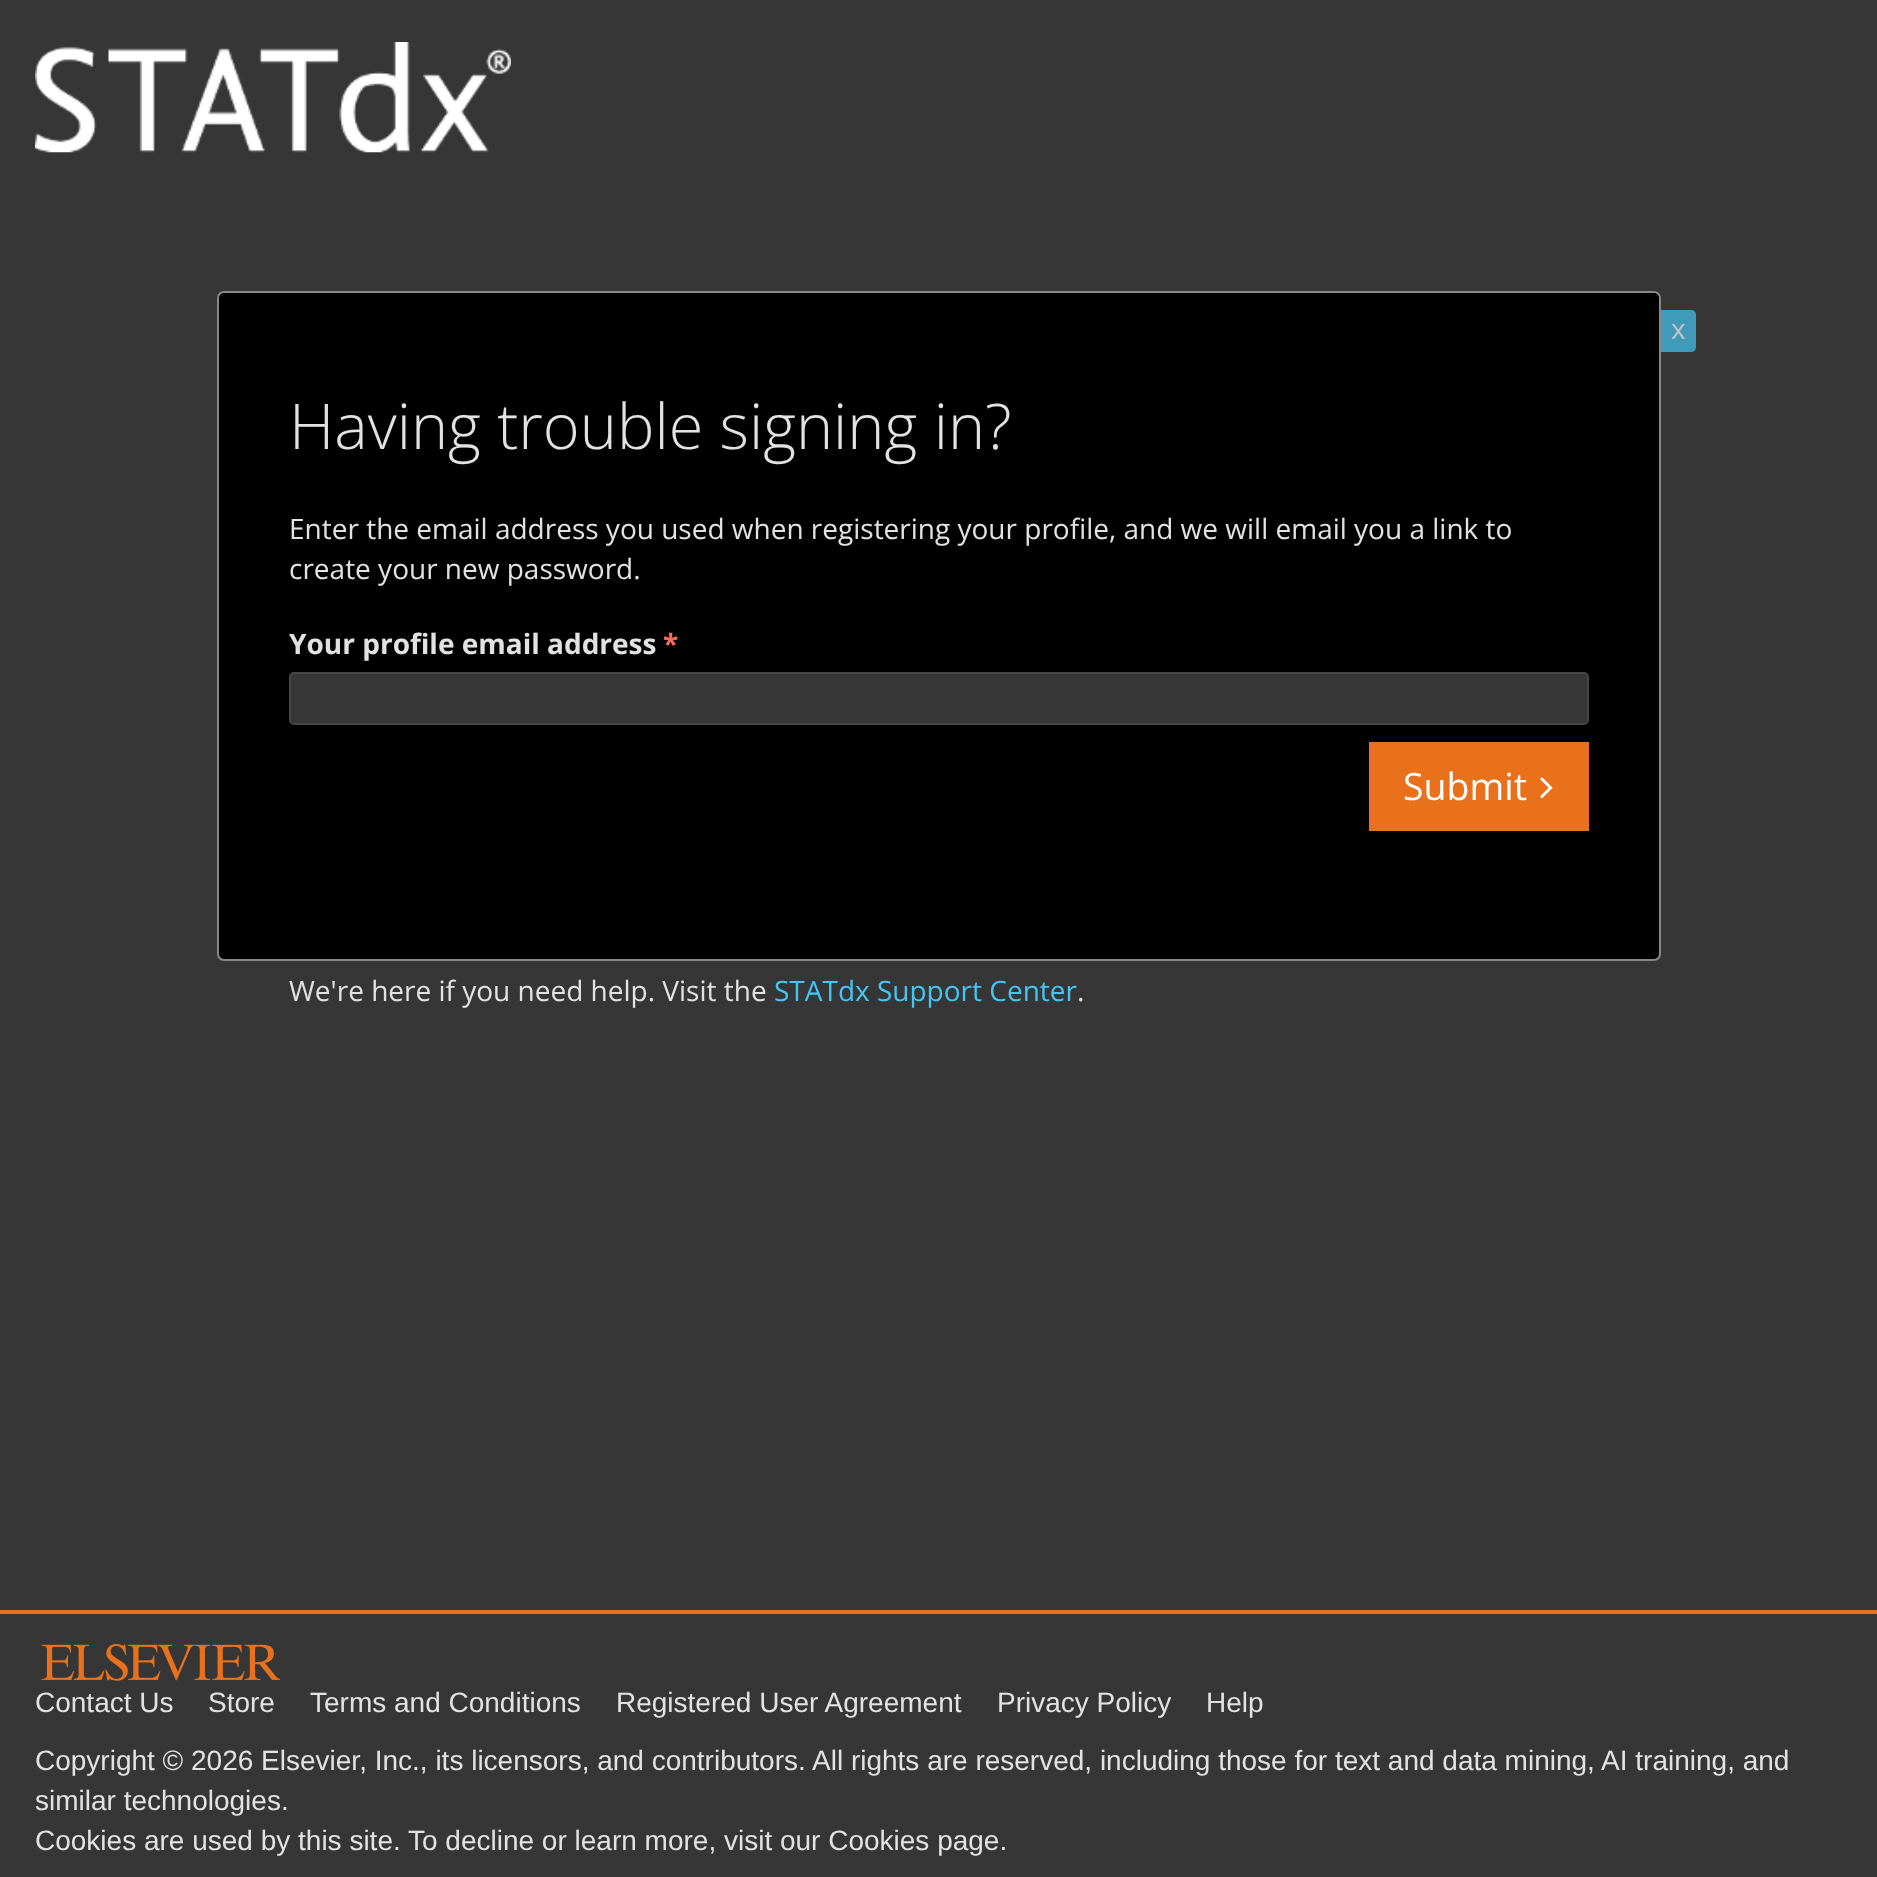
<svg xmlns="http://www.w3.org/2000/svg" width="1877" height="1877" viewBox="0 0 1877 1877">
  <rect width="100%" height="100%" fill="#363636"/>
  <image x="35" y="42" width="476" height="111" href="img/1.png"/>
  <rect x="218" y="292" width="1442" height="668" rx="6" fill="#000" stroke="#888" stroke-width="2"/>
  <path d="M1661 310H1691C1694 310 1696 312 1696 315V347C1696 350 1694 352 1691 352H1661Z" fill="#409bbb"/>
  <rect x="290" y="673" width="1298" height="51" rx="4" fill="#363636" stroke="#464646" stroke-width="2"/>
  <path d="M1369 742h220v89H1369z" fill="#e9711c"/>
  <image x="1540" y="777" width="13" height="22" href="img/2.png"/>
  <path d="M0 1610h1877v4H0z" fill="#e9711c"/>
  <image x="41" y="1644" width="239" height="37" href="img/3.png"/>
  <text x="1671" y="339" font-family="Open Sans" font-size="28" fill="#c3c3c3">x</text>
  <text x="289" y="449" font-family="Open Sans" font-size="63" font-weight="300" fill="#e2e2e2">Having trouble signing in?</text>
  <g font-family="Open Sans" font-size="28" fill="#e2e2e2">
    <text x="289" y="539">Enter the email address you used when registering your profile, and we will email you a link to</text>
    <text x="289" y="579">create your new password.</text>
  </g>
  <text x="289" y="654" font-family="Open Sans" font-size="28" font-weight="bold" fill="#e2e2e2">Your profile email address</text>
  <text x="663" y="654" font-family="Open Sans" font-size="28" font-weight="bold" fill="#ff6a5a">*</text>
  <text x="1403" y="800" font-family="Open Sans" font-size="37.5" fill="#fff">Submit</text>
  <text x="289" y="1001" font-family="Open Sans" font-size="28" fill="#e2e2e2">We're here if you need help. Visit the</text>
  <text x="774" y="1001" font-family="Open Sans" font-size="28" fill="#44c6f4">STATdx Support Center</text>
  <text x="1077" y="1001" font-family="Open Sans" font-size="28" fill="#e2e2e2">.</text>
  <g font-family="Liberation Sans" font-size="28" fill="#e2e2e2">
    <text x="35" y="1712">Contact Us</text>
    <text x="208" y="1712">Store</text>
    <text x="310" y="1712">Terms and Conditions</text>
    <text x="616" y="1712">Registered User Agreement</text>
    <text x="997" y="1712">Privacy Policy</text>
    <text x="1206" y="1712">Help</text>
    <text x="35" y="1770">Copyright © 2026 Elsevier, Inc., its licensors, and contributors. All rights are reserved, including those for text and data mining, AI training, and</text>
    <text x="35" y="1810">similar technologies.</text>
    <text x="35" y="1850">Cookies are used by this site. To decline or learn more, visit our Cookies page.</text>
  </g>
</svg>
